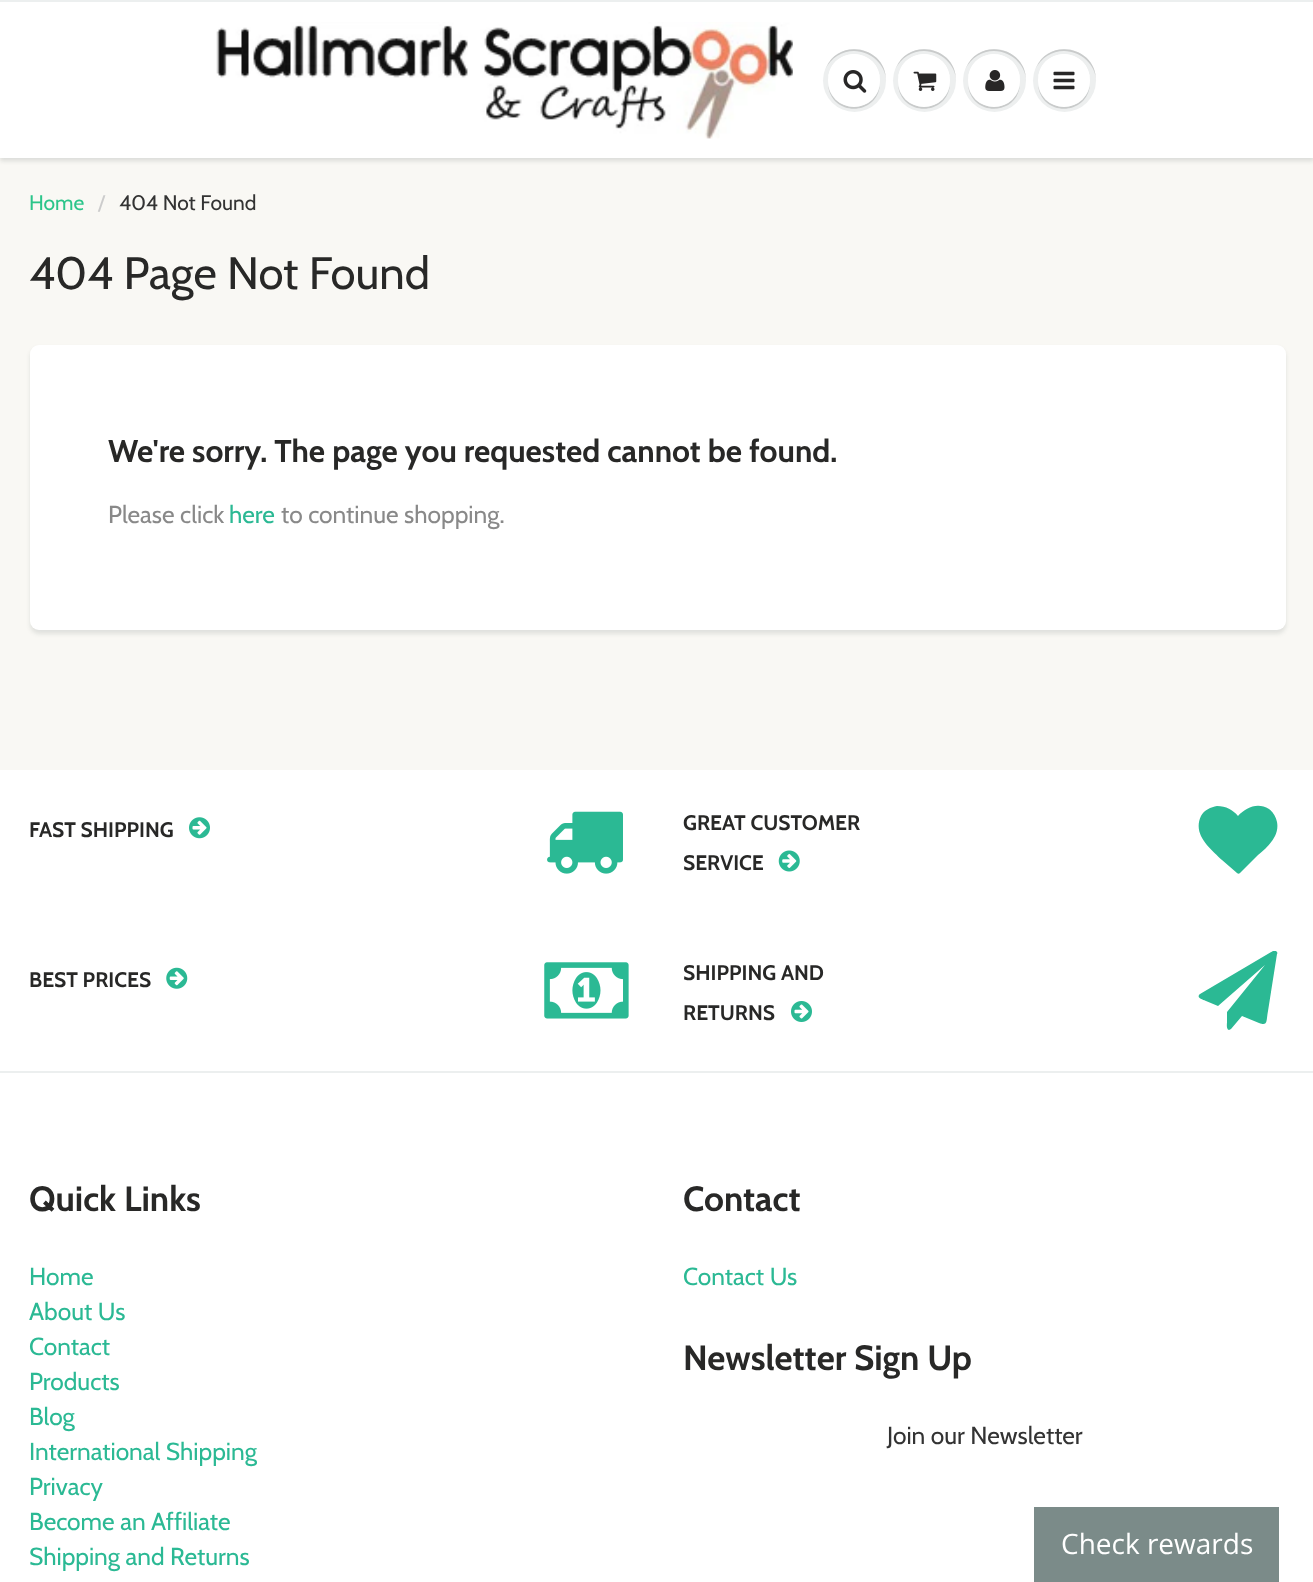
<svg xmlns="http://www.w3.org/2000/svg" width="1313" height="1582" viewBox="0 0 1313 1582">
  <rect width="100%" height="100%" fill="#fff"/>
  <path d="M0 158h1313v612H0z" fill="#f9f8f4"/>
  <path d="M0 4h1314v157H0z" fill="#0b191c1f" filter="blur(2px)"/>
  <path d="M0 2h1313v156H0z" fill="#fff"/>
  <path d="M0 0h1313v2H0z" fill="#ecefef"/>
  <image x="216" y="22" width="577" height="117" href="img/1.png"/>
  <circle cx="854.5" cy="80.5" r="31.5" fill="#edefef"/>
  <path d="M880 84C876 114 832 114 828 84C830 117 878 117 880 84Z" fill="#c9cbcb"/>
  <path d="M854 51C871 51 886 65 886 81C887 47 839 37 826 68C831 58 842 51 854 51Z" fill="#c9cbcb"/>
  <rect x="828" y="54" width="52" height="53" rx="26" fill="#fff"/>
  <path d="M854 56C868 56 880 68 880 82C881 45 827 45 828 82C828 68 840 56 854 56Z" fill="#fff"/>
  <image x="843" y="70" width="24" height="23" href="img/2.png"/>
  <circle cx="924.5" cy="80.5" r="31.5" fill="#edefef"/>
  <path d="M950 84C946 114 902 114 898 84C900 117 948 117 950 84Z" fill="#c9cbcb"/>
  <path d="M924 51C941 51 956 65 956 81C957 47 909 37 896 68C901 58 912 51 924 51Z" fill="#c9cbcb"/>
  <rect x="898" y="54" width="52" height="53" rx="26" fill="#fff"/>
  <path d="M924 56C938 56 950 68 950 82C951 45 897 45 898 82C898 68 910 56 924 56Z" fill="#fff"/>
  <image x="913" y="71" width="24" height="20" href="img/3.png"/>
  <circle cx="994.5" cy="80.5" r="31.5" fill="#edefef"/>
  <path d="M1020 84C1016 114 972 114 968 84C970 117 1018 117 1020 84Z" fill="#c9cbcb"/>
  <path d="M994 51C1011 51 1026 65 1026 81C1027 47 979 37 966 68C971 58 982 51 994 51Z" fill="#c9cbcb"/>
  <rect x="968" y="54" width="52" height="53" rx="26" fill="#fff"/>
  <path d="M994 56C1008 56 1020 68 1020 82C1021 45 967 45 968 82C968 68 980 56 994 56Z" fill="#fff"/>
  <image x="985" y="70" width="20" height="21" href="img/4.png"/>
  <circle cx="1064.5" cy="80.5" r="31.5" fill="#edefef"/>
  <path d="M1038 84C1040 117 1088 117 1090 84C1086 114 1042 114 1038 84Z" fill="#c9cbcb"/>
  <path d="M1064 51C1081 51 1096 65 1096 81C1097 47 1049 37 1036 68C1041 58 1052 51 1064 51Z" fill="#c9cbcb"/>
  <rect x="1038" y="54" width="52" height="53" rx="26" fill="#fff"/>
  <path d="M1064 56C1078 56 1090 68 1090 82C1091 45 1037 45 1038 82C1038 68 1050 56 1064 56Z" fill="#fff"/>
  <image x="1053" y="71" width="22" height="19" href="img/5.png"/>
  <rect x="30" y="348" width="1256" height="286" rx="9" fill="#0b191c1a" filter="blur(2px)"/>
  <rect x="30" y="345" width="1256" height="285" rx="9" fill="#fff"/>
  <image x="189" y="817" width="21" height="22" href="img/6.png"/>
  <image x="547" y="811" width="76" height="63" href="img/7.png"/>
  <image x="778" y="850" width="22" height="22" href="img/8.png"/>
  <path d="M1240 873C1239 874 1238 874 1237 873L1222 860C1211 849 1192 835 1201 816C1204 810 1211 807 1217 806C1226 806 1233 810 1238 816C1246 807 1258 802 1269 809C1273 812 1276 817 1277 822C1278 827 1277 832 1275 836C1271 844 1264 850 1258 855Z" fill="#2bb994"/>
  <image x="166" y="967" width="22" height="22" href="img/9.png"/>
  <image x="544" y="962" width="85" height="57" href="img/10.png"/>
  <image x="791" y="1001" width="21" height="21" href="img/11.png"/>
  <path d="M1276 951C1277 952 1278 953 1277 954L1268 1011C1266 1022 1268 1026 1259 1023L1242 1016L1231 1029L1229 1030C1226 1029 1227 1024 1227 1022V1012L1265 965L1218 1006L1206 1001C1205 1000 1195 998 1200 994L1273 951C1274 951 1275 951 1276 951Z" fill="#2bb994"/>
  <path d="M0 1071h1313v2H0z" fill="#ecefef"/>
  <path d="M1034 1507h245v75H1034z" fill="#7b8b89"/>
  <text x="29" y="210" font-family="Cabin" font-size="21" fill="#2bc58a">Home</text>
  <text x="98" y="210" font-family="Cabin" font-size="21" fill="#ccc">/</text>
  <text x="119" y="210" font-family="Cabin" font-size="21" fill="#333">404 Not Found</text>
  <text x="29" y="289" font-family="Cabin" font-size="45.5" fill="#282827">404 Page Not Found</text>
  <text x="108" y="462" font-family="Cabin" font-size="31.5" font-weight="bold" fill="#282827">We're sorry. The page you requested cannot be found.</text>
  <text x="108" y="523" font-family="Cabin" font-size="24.5" fill="#898989">Please click</text>
  <text x="229" y="523" font-family="Cabin" font-size="24.5" fill="#2bb994">here</text>
  <text x="281" y="523" font-family="Cabin" font-size="24.5" fill="#898989">to continue shopping.</text>
  <g font-family="Cabin" font-size="21" font-weight="bold" fill="#282827">
    <text x="29" y="837">FAST SHIPPING</text>
    <text x="683" y="830">GREAT CUSTOMER</text>
    <text x="683" y="870">SERVICE</text>
    <text x="29" y="987">BEST PRICES</text>
    <text x="683" y="980">SHIPPING AND</text>
    <text x="683" y="1020">RETURNS</text>
  </g>
  <text x="29" y="1211" font-family="Cabin" font-size="35" font-weight="bold" fill="#282827">Quick Links</text>
  <g font-family="Cabin" font-size="24.5" fill="#2bb994">
    <text x="29" y="1285">Home</text>
    <text x="29" y="1320">About Us</text>
    <text x="29" y="1355">Contact</text>
    <text x="29" y="1390">Products</text>
    <text x="29" y="1425">Blog</text>
    <text x="29" y="1460">International Shipping</text>
    <text x="29" y="1495">Privacy</text>
    <text x="29" y="1530">Become an Affiliate</text>
    <text x="29" y="1565">Shipping and Returns</text>
  </g>
  <text x="683" y="1211" font-family="Cabin" font-size="35" font-weight="bold" fill="#282827">Contact</text>
  <text x="683" y="1285" font-family="Cabin" font-size="24.5" fill="#2bb994">Contact Us</text>
  <text x="683" y="1370" font-family="Cabin" font-size="35" font-weight="bold" fill="#282827">Newsletter Sign Up</text>
  <text x="887" y="1444" font-family="Cabin" font-size="24.5" fill="#333">Join our Newsletter</text>
  <text x="1061" y="1554" font-family="Open Sans" font-size="28" fill="#fff">Check rewards</text>
</svg>
